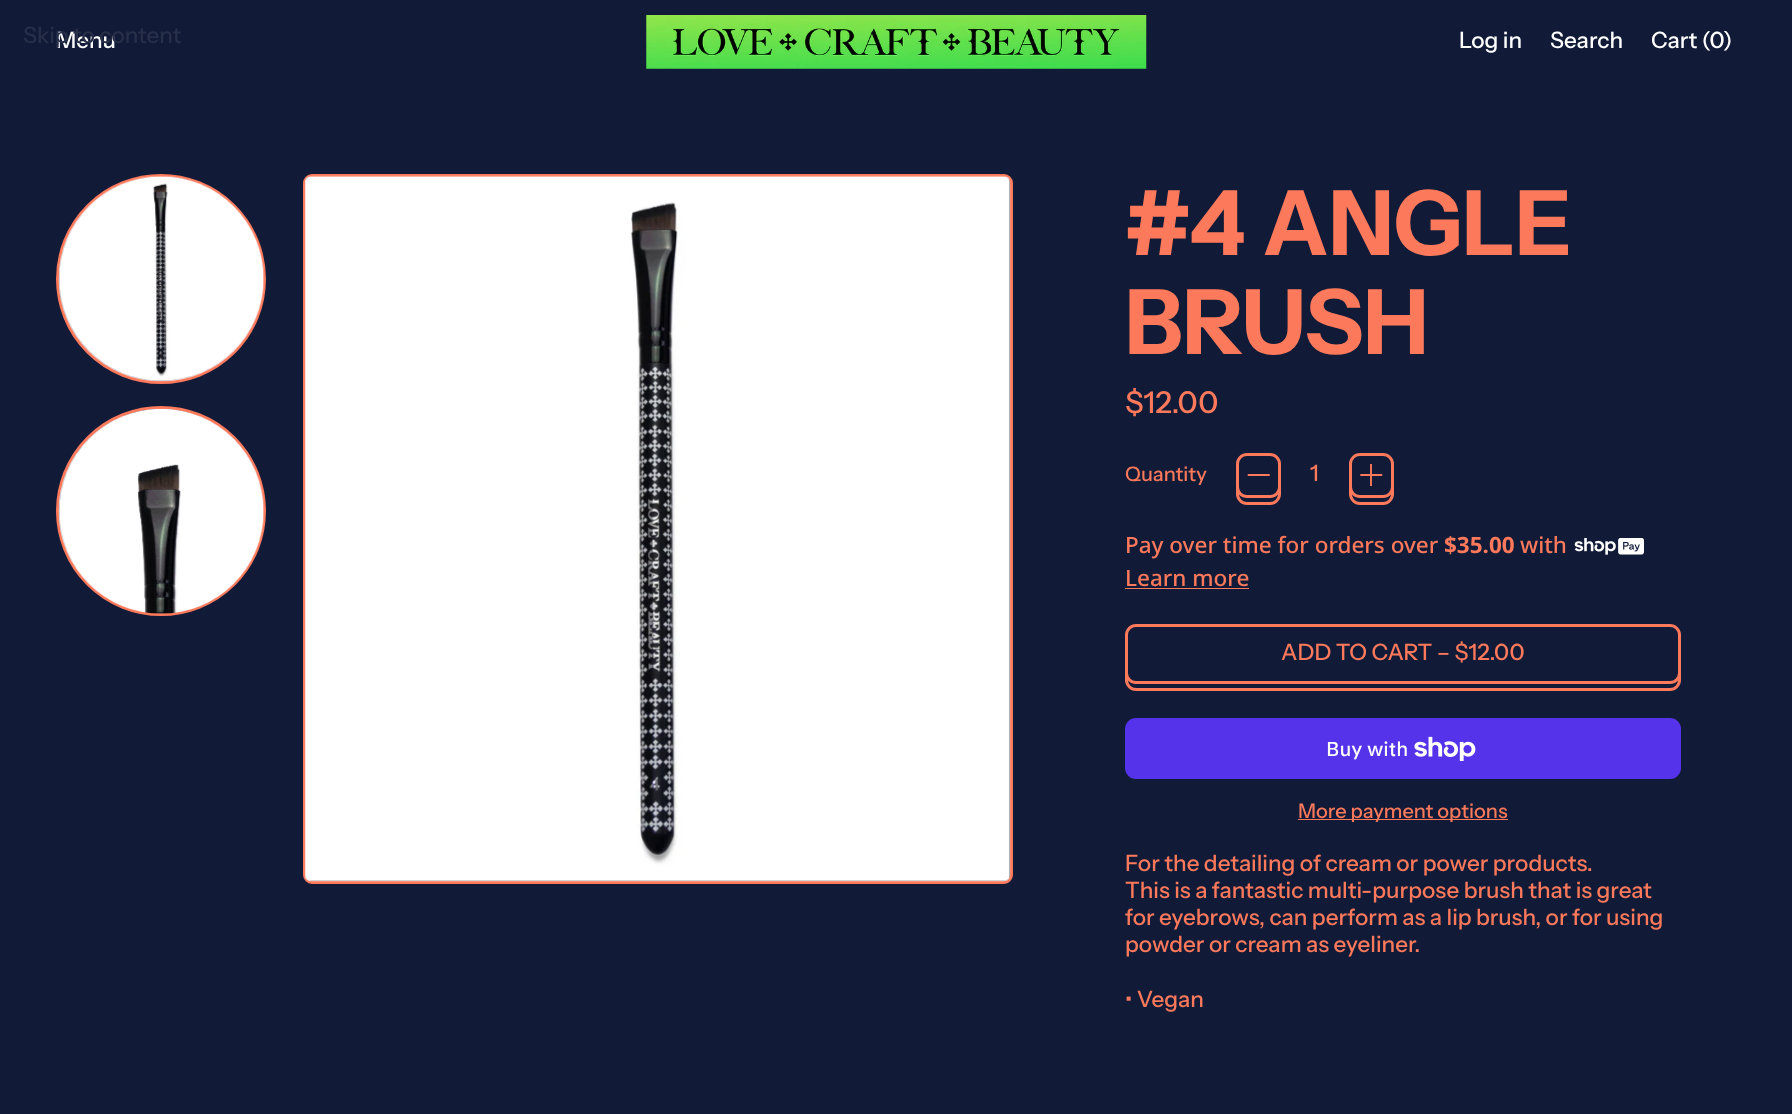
<svg xmlns="http://www.w3.org/2000/svg" width="1792" height="1114" viewBox="0 0 1792 1114">
  <defs>
    <clipPath id="clip1"><path d="M1360 464h23v22H1360z"/></clipPath>
  </defs>
  <rect width="100%" height="100%" fill="#111a37"/>
  <image x="646" y="15" width="501" height="54" href="img/1.png"/>
  <circle cx="161" cy="279" r="103.5" fill="none" stroke="#fd795b" stroke-width="3"/>
  <image x="58" y="175" width="207" height="207" href="img/2.png"/>
  <circle cx="161" cy="511" r="103.5" fill="none" stroke="#fd795b" stroke-width="3"/>
  <image x="58" y="408" width="207" height="206" href="img/3.png"/>
  <rect x="304.5" y="175.5" width="707" height="707" rx="7.5" fill="none" stroke="#fd795b" stroke-width="3"/>
  <image x="304" y="175" width="707" height="707" href="img/4.png"/>
  <rect x="1237.5" y="461.5" width="42" height="42" rx="9.5" fill="none" stroke="#fd795b" stroke-width="3"/>
  <rect x="1237.5" y="454.5" width="42" height="42" rx="9.5" fill="#111a37" stroke="#fd795b" stroke-width="3"/>
  <path d="M1269 475H1248.5" fill="none" stroke="#fd795b" stroke-width="1.9" stroke-linecap="round" stroke-linejoin="round"/>
  <rect x="1350.5" y="461.5" width="42" height="42" rx="9.5" fill="none" stroke="#fd795b" stroke-width="3"/>
  <rect x="1350.5" y="454.5" width="42" height="42" rx="9.5" fill="#111a37" stroke="#fd795b" stroke-width="3"/>
  <g clip-path="url(#clip1)">
    <path d="M1371 464.5V485.5" fill="none" stroke="#fd795b" stroke-width="1.9" stroke-linecap="round" stroke-linejoin="round"/>
  </g>
  <path d="M1381.5 475H1361" fill="none" stroke="#fd795b" stroke-width="1.9" stroke-linecap="round" stroke-linejoin="round"/>
  <image x="1574" y="538" width="70" height="17" href="img/5.png"/>
  <path d="M1125 588h124v1H1125z" fill="#fd795b"/>
  <rect x="1126.5" y="632.5" width="553" height="57" rx="9.5" fill="none" stroke="#fd795b" stroke-width="3"/>
  <rect x="1126.5" y="625.5" width="553" height="57" rx="9.5" fill="#111a37" stroke="#fd795b" stroke-width="3"/>
  <rect x="1125" y="718" width="556" height="61" rx="11" fill="#5433eb"/>
  <image x="1414" y="736" width="62" height="25" href="img/6.png"/>
  <path d="M1298 819h210v1H1298z" fill="#fd795b"/>
  <text x="56" y="48" font-family="Instrument Sans" font-size="22.5" font-weight="500" fill="#fff">Menu</text>
  <text x="23" y="43" font-family="Instrument Sans" font-size="22.5" font-weight="500" fill="#272f49">Skip to content</text>
  <g font-family="Instrument Sans" font-size="22.5" font-weight="500" fill="#fff">
    <text x="1459" y="48">Log in</text>
    <text x="1550" y="48">Search</text>
    <text x="1651" y="48">Cart (0)</text>
  </g>
  <g font-family="Instrument Sans" font-size="90" font-weight="bold" fill="#fd795b">
    <text x="1125" y="255">#4 ANGLE</text>
    <text x="1125" y="354">BRUSH</text>
  </g>
  <text x="1125" y="413" font-family="Instrument Sans" font-size="30" font-weight="500" fill="#fd795b">$12.00</text>
  <text x="1125" y="481" font-family="Instrument Sans" font-size="20" font-weight="500" fill="#fd795b">Quantity</text>
  <text x="1310" y="481" font-family="Instrument Sans" font-size="22.5" font-weight="500" fill="#fd795b">1</text>
  <text x="1125" y="553" font-family="Noto Sans" font-size="22.5" font-weight="500" fill="#fd795b">Pay over time for orders over</text>
  <text x="1444" y="553" font-family="Noto Sans" font-size="22.5" font-weight="bold" fill="#fd795b">$35.00</text>
  <g font-family="Noto Sans" font-size="22.5" font-weight="500" fill="#fd795b">
    <text x="1520" y="553">with</text>
    <text x="1125" y="586">Learn more</text>
  </g>
  <text x="1281" y="660" font-family="Instrument Sans" font-size="22.5" font-weight="500" fill="#fd795b">ADD TO CART – $12.00</text>
  <text x="1326" y="756" font-family="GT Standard" font-size="20" font-weight="500" fill="#fff">Buy with</text>
  <text x="1298" y="818" font-family="Instrument Sans" font-size="20" font-weight="500" fill="#fd795b">More payment options</text>
  <g font-family="Instrument Sans" font-size="22.5" font-weight="500" fill="#fd795b">
    <text x="1125" y="871">For the detailing of cream or power products.</text>
    <text x="1125" y="898">This is a fantastic multi-purpose brush that is great</text>
    <text x="1125" y="925">for eyebrows, can perform as a lip brush, or for using</text>
    <text x="1125" y="952">powder or cream as eyeliner.</text>
    <text x="1125" y="1007">• Vegan</text>
  </g>
</svg>
